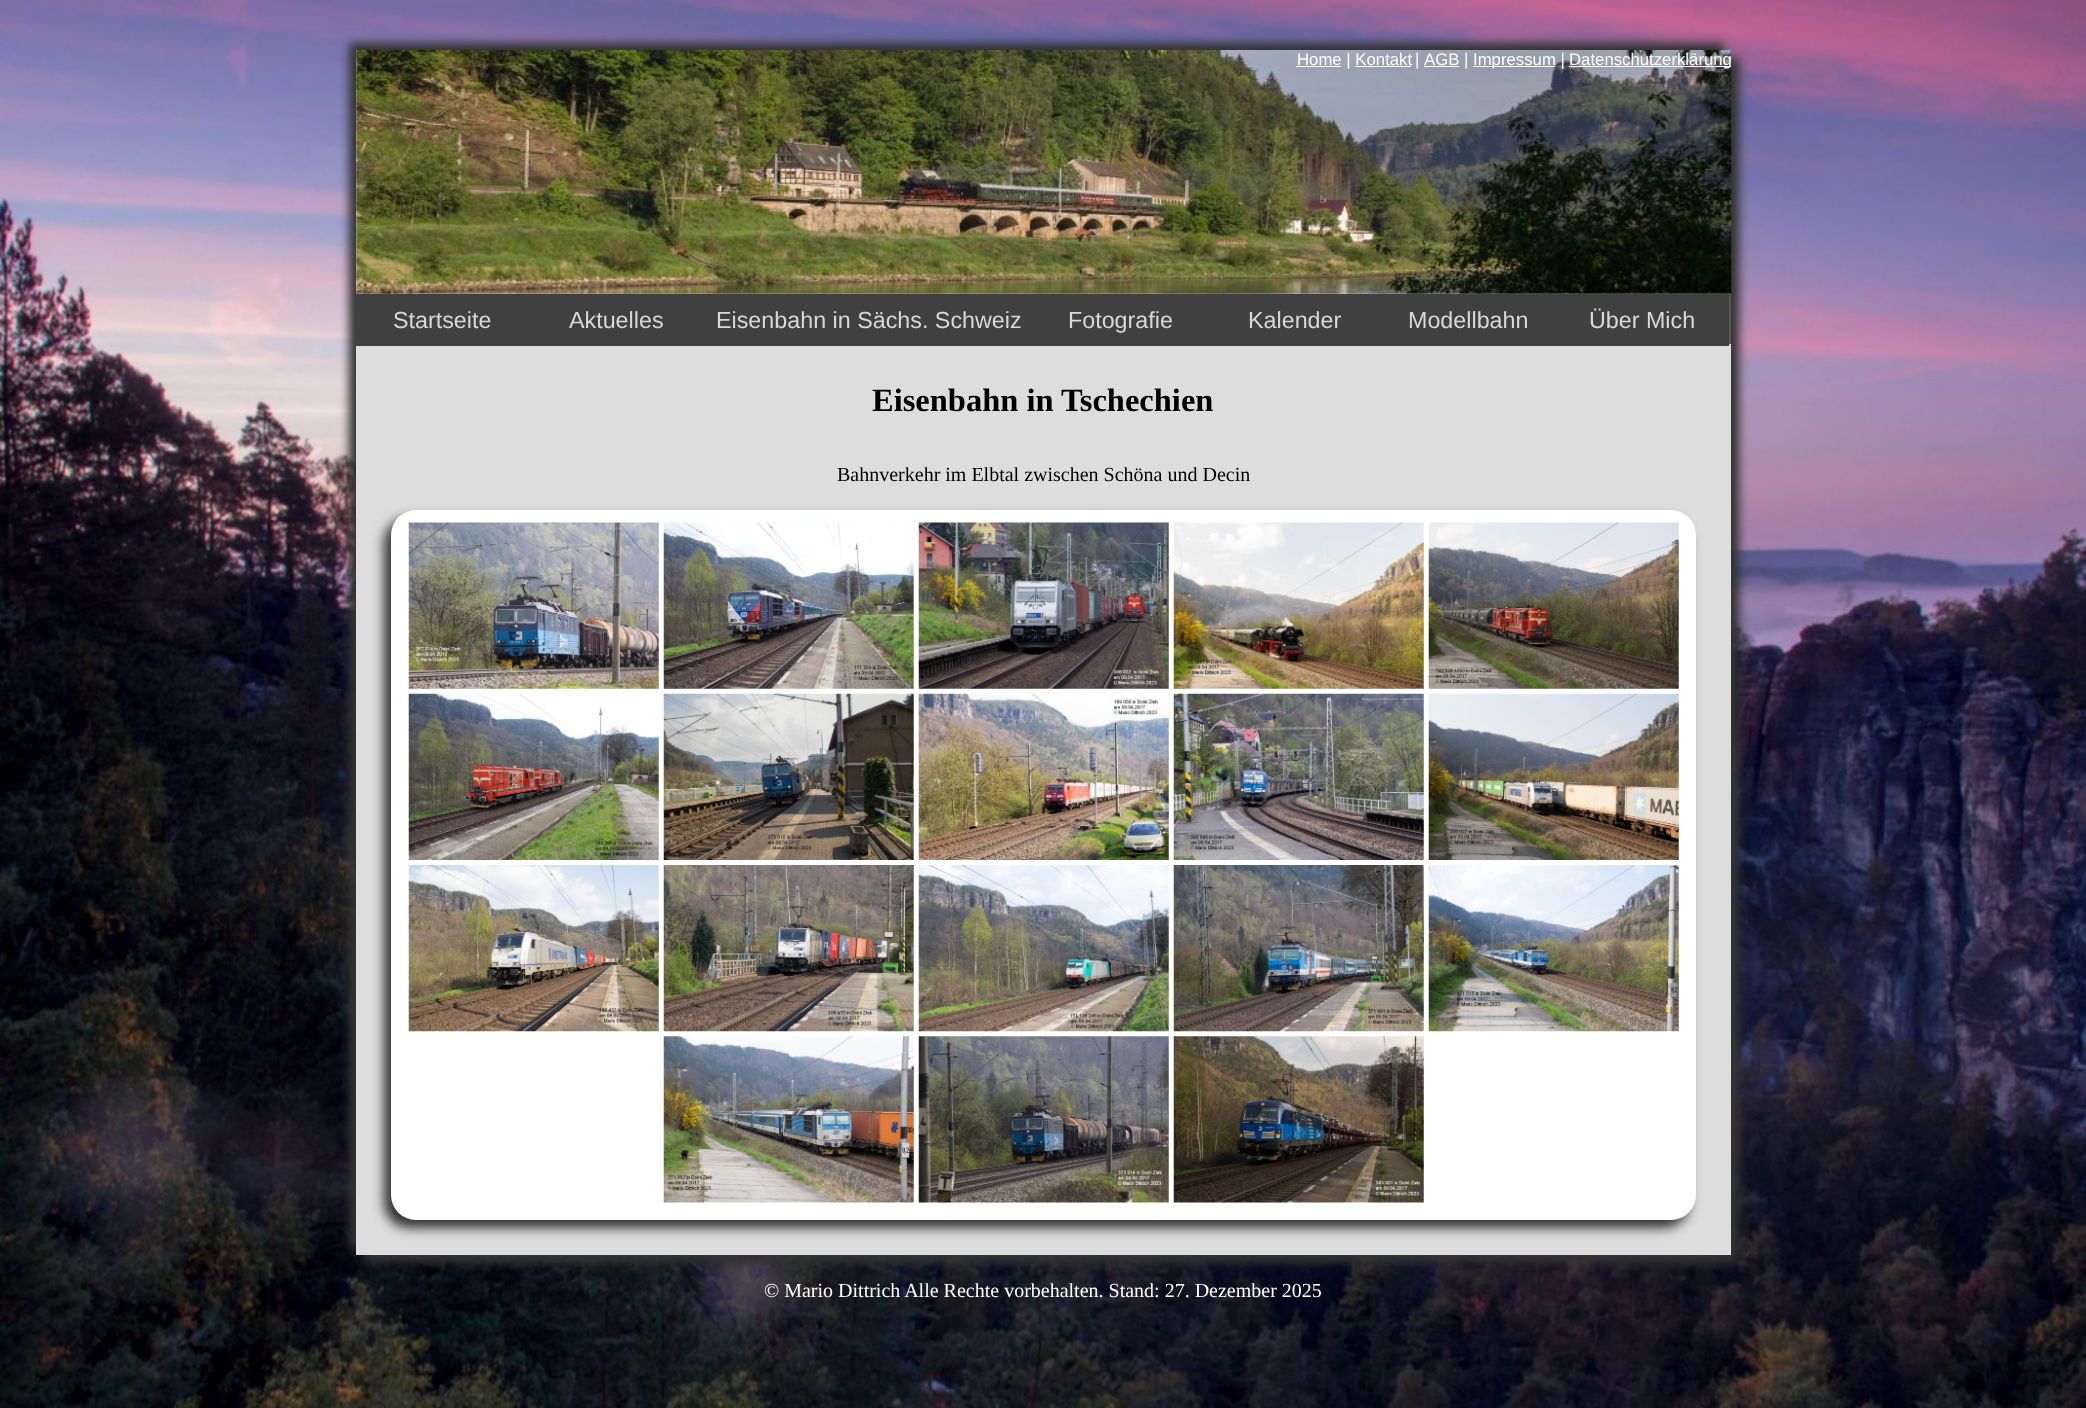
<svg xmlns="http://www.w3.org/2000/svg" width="2086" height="1408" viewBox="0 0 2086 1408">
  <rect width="100%" height="100%" fill="#fff"/>
  <image x="0" y="0" width="2086" height="1408" href="img/1.png"/>
  <path d="M349 43h1375v1205H349z" fill="#333" filter="blur(5px)"/>
  <path d="M364 58h1375v1205H364z" fill="#333" filter="blur(5px)"/>
  <path d="M356 50h1375v1205H356z" fill="#ddd"/>
  <image x="356" y="50" width="1376" height="244" href="img/2.png"/>
  <path d="M1296 66h45v1H1296z" fill="#fff"/>
  <path d="M1424 66h35v1H1424z" fill="#fff"/>
  <path d="M1473 66h82v1H1473z" fill="#fff"/>
  <path d="M1569 66h162v1H1569z" fill="#fff"/>
  <path d="M1355 66h56v1H1355z" fill="#fff"/>
  <path d="M1729 294h2v50H1729z" fill="#555"/>
  <path d="M356 294h1373v52H356z" fill="#404040"/>
  <rect x="384" y="518" width="1305" height="710" rx="25" fill="#333" filter="blur(6px)"/>
  <rect x="391" y="510" width="1305" height="710" rx="25" fill="#fff"/>
  <image x="408" y="522" width="251" height="167" href="img/3.png"/>
  <image x="663" y="522" width="251" height="167" href="img/4.png"/>
  <image x="918" y="522" width="251" height="167" href="img/5.png"/>
  <image x="1173" y="522" width="251" height="167" href="img/6.png"/>
  <image x="1428" y="522" width="251" height="167" href="img/7.png"/>
  <image x="408" y="693" width="251" height="167" href="img/8.png"/>
  <image x="663" y="693" width="251" height="167" href="img/9.png"/>
  <image x="918" y="693" width="251" height="167" href="img/10.png"/>
  <image x="1173" y="693" width="251" height="167" href="img/11.png"/>
  <image x="1428" y="693" width="251" height="167" href="img/12.png"/>
  <image x="408" y="865" width="251" height="167" href="img/13.png"/>
  <image x="663" y="865" width="251" height="167" href="img/14.png"/>
  <image x="918" y="865" width="251" height="167" href="img/15.png"/>
  <image x="1173" y="865" width="251" height="167" href="img/16.png"/>
  <image x="1428" y="865" width="251" height="167" href="img/17.png"/>
  <image x="663" y="1036" width="251" height="167" href="img/18.png"/>
  <image x="918" y="1036" width="251" height="167" href="img/19.png"/>
  <image x="1173" y="1036" width="251" height="167" href="img/20.png"/>
  <g font-family="Liberation Sans" font-size="16.75" fill="#fff">
    <text x="1297" y="65">Home | Kontakt</text>
    <text x="1415" y="65">|</text>
    <text x="1424" y="65">AGB |</text>
    <text x="1473" y="65">Impressum |</text>
    <text x="1569" y="65">Datenschutzerklärung</text>
  </g>
  <g font-family="Liberation Sans" font-size="23.3" fill="#d8d8d8">
    <text x="393" y="328">Startseite</text>
    <text x="569" y="328">Aktuelles</text>
    <text x="716" y="328">Eisenbahn in Sächs. Schweiz</text>
    <text x="1068" y="328">Fotografie</text>
    <text x="1248" y="328">Kalender</text>
    <text x="1408" y="328">Modellbahn</text>
    <text x="1589" y="328">Über Mich</text>
  </g>
  <text x="872" y="411" font-family="Liberation Serif" font-size="32.5" font-weight="bold" fill="#000">Eisenbahn in Tschechien</text>
  <text x="837" y="481" font-family="Liberation Serif" font-size="20" fill="#000">Bahnverkehr im Elbtal zwischen Schöna und Decin</text>
  <text x="764" y="1297" font-family="Liberation Serif" font-size="20" fill="#fff">© Mario Dittrich Alle Rechte vorbehalten. Stand: 27. Dezember 2025</text>
</svg>
